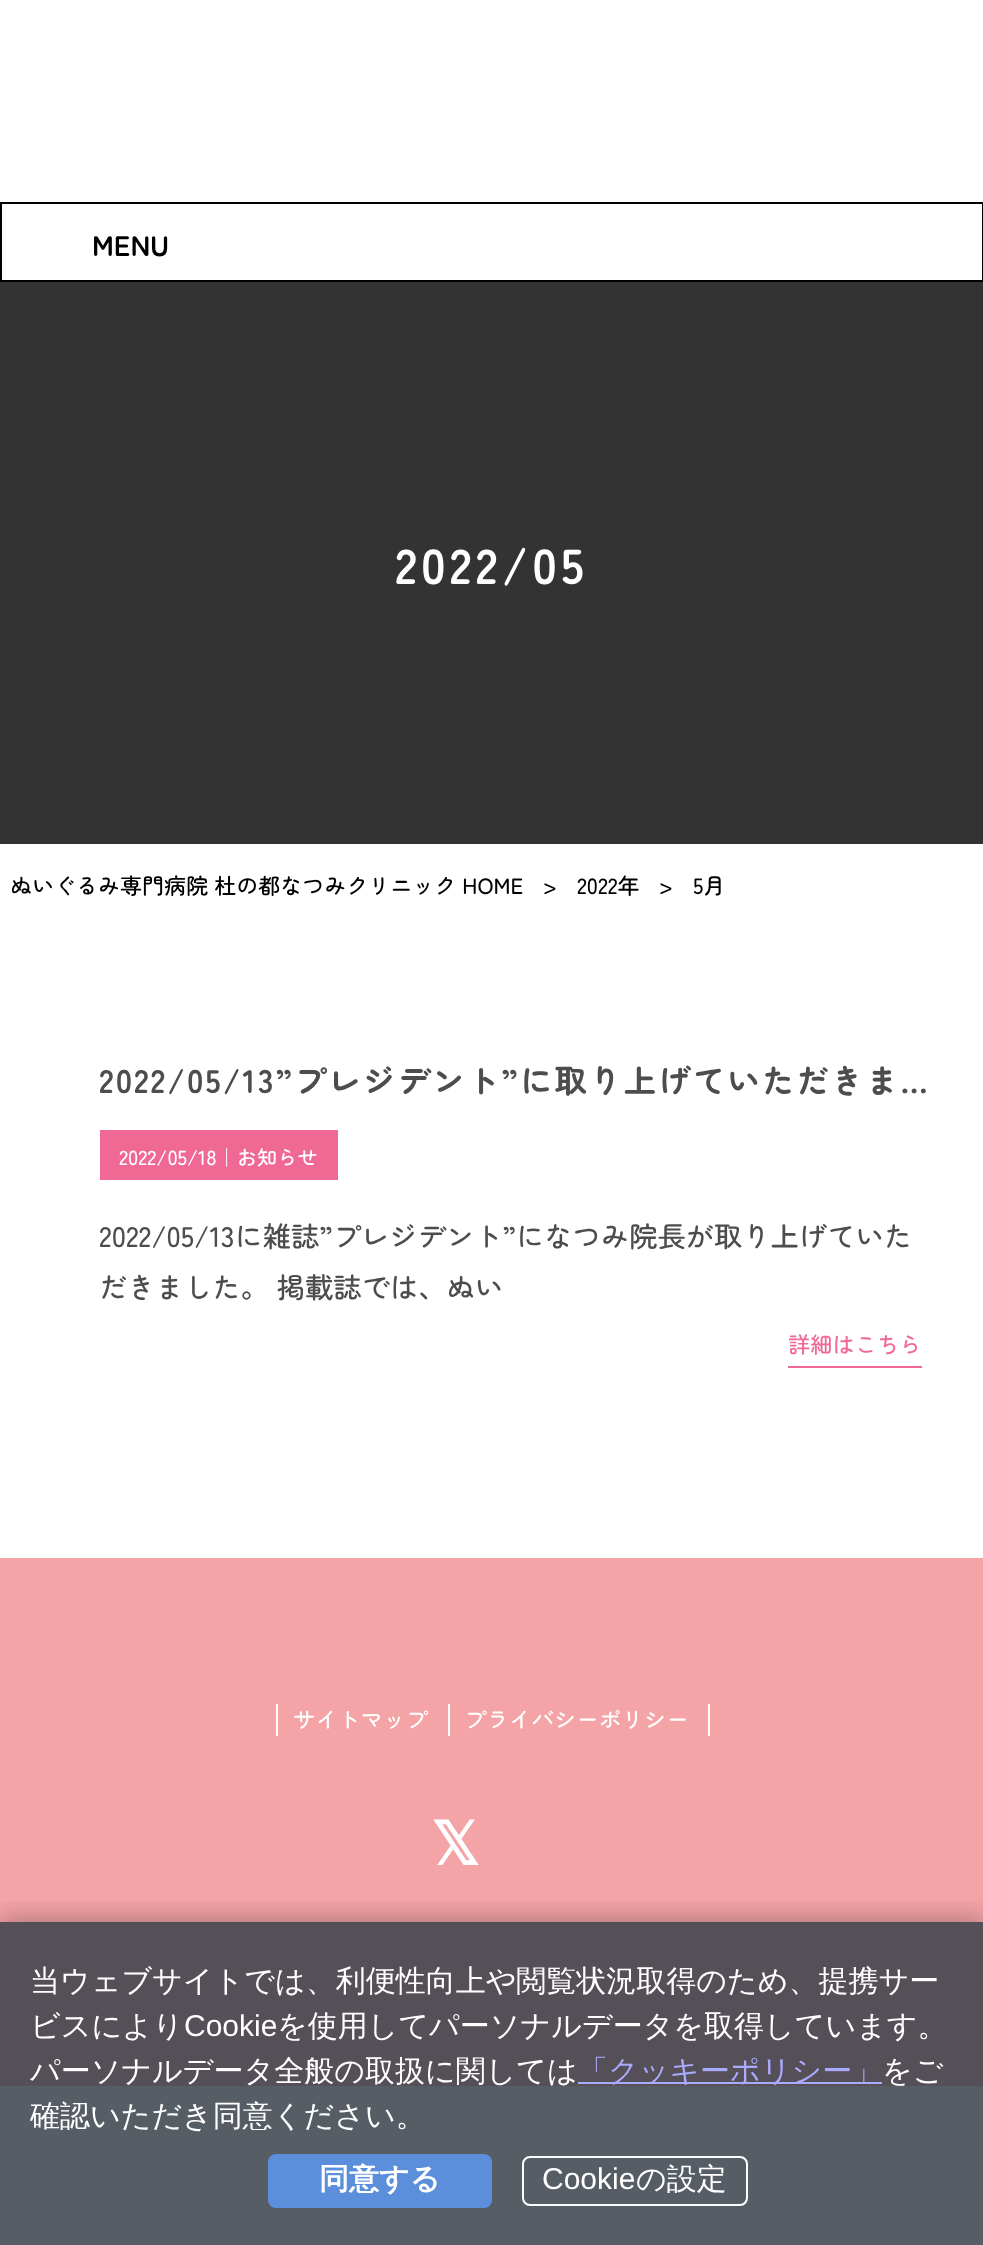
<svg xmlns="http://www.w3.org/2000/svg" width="983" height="2245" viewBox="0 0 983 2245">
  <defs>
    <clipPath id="clip1"><path d="M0 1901h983v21H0z"/></clipPath>
  </defs>
  <rect width="100%" height="100%" fill="#fff"/>
  <path d="M0 2086h983v159H0z" fill="#575d65"/>
  <path d="M1 203h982v78H1z" fill="none" stroke="#000" stroke-width="2"/>
  <path d="M0 282h983v562H0z" fill="#333"/>
  <path d="M100 1130h238v50H100z" fill="#f06994"/>
  <path d="M788 1366h134v2H788z" fill="#f06994"/>
  <path d="M0 1558h983v364H0z" fill="#f4a3a6"/>
  <path d="M0 1922h983v164H0z" fill="#554f58"/>
  <path d="M276 1704h2v32H276z" fill="#fff"/>
  <path d="M448 1704h2v32H448z" fill="#fff"/>
  <path d="M708 1704h2v32H708z" fill="#fff"/>
  <g clip-path="url(#clip1)">
    <path d="M0 1918h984v324H0z" fill="#00000045" filter="blur(11.5px)"/>
  </g>
  <path d="M578 2082h304v2H578z" fill="#aaf"/>
  <rect x="270" y="2156" width="220" height="50" rx="6" fill="#5b8fdb" stroke="#5b8fdb" stroke-width="4"/>
  <rect x="523" y="2157" width="224" height="48" rx="7" fill="none" stroke="#fff" stroke-width="2"/>
  <text x="92" y="256" font-family="Zen Maru Gothic" font-size="28.3" font-weight="bold" fill="#000">MENU</text>
  <text x="395" y="584" font-family="Zen Maru Gothic" font-size="49" font-weight="bold" letter-spacing="4" fill="#fff">2022/05</text>
  <g font-family="Zen Maru Gothic" font-size="22" font-weight="500" fill="#000">
    <text x="10" y="894">ぬいぐるみ専門病院 杜の都なつみクリニック HOME</text>
    <text x="543" y="894">&gt;</text>
    <text x="577" y="894">2022年</text>
    <text x="659" y="894">&gt;</text>
    <text x="693" y="894">5月</text>
  </g>
  <text x="99" y="1093" font-family="Zen Maru Gothic" font-size="32.6" font-weight="bold" letter-spacing="2" fill="#4d4d4d">2022/05/13”プレジデント”に取り上げていただきま…</text>
  <text x="119" y="1165" font-family="Zen Maru Gothic" font-size="20.25" font-weight="500" fill="#fff">2022/05/18｜お知らせ</text>
  <g font-family="Zen Maru Gothic" font-size="28.3" font-weight="500" fill="#4d4d4d">
    <text x="99" y="1247">2022/05/13に雑誌”プレジデント”になつみ院長が取り上げていた</text>
    <text x="99" y="1298">だきました。 掲載誌では、ぬい</text>
  </g>
  <text x="788" y="1353" font-family="Zen Maru Gothic" font-size="22.25" font-weight="500" fill="#f06994">詳細はこちら</text>
  <g font-family="Zen Maru Gothic" font-size="22.5" font-weight="500" fill="#fff">
    <text x="293" y="1728">サイトマップ</text>
    <text x="464" y="1728">プライバシーポリシー</text>
  </g>
  <text x="431" y="1865" font-family="DejaVu Sans" font-size="60" font-weight="bold" fill="#fff">𝕏</text>
  <g font-family="WenQuanYi Zen Hei" font-size="30" font-weight="500" fill="#fff">
    <text x="30" y="1991">当ウェブサイトでは、利便性向上や閲覧状況取得のため、提携サー</text>
    <text x="30" y="2036">ビスにより</text>
  </g>
  <text x="184" y="2036" font-family="Liberation Sans" font-size="30" fill="#fff">Cookie</text>
  <g font-family="WenQuanYi Zen Hei" font-size="30" font-weight="500" fill="#fff">
    <text x="277" y="2036">を使用してパーソナルデータを取得しています。</text>
    <text x="30" y="2081">パーソナルデータ全般の取扱に関しては</text>
  </g>
  <text x="578" y="2081" font-family="WenQuanYi Zen Hei" font-size="30" font-weight="500" fill="#aaf">「クッキーポリシー」</text>
  <g font-family="WenQuanYi Zen Hei" font-size="30" font-weight="500" fill="#fff">
    <text x="882" y="2081">をご</text>
    <text x="30" y="2126">確認いただき同意ください。</text>
  </g>
  <text x="319" y="2189" font-family="WenQuanYi Zen Hei" font-size="30" font-weight="bold" fill="#fff">同意する</text>
  <text x="542" y="2189" font-family="Liberation Sans" font-size="30" fill="#fff">Cookie</text>
  <text x="636" y="2189" font-family="WenQuanYi Zen Hei" font-size="30" font-weight="500" fill="#fff">の設定</text>
</svg>
